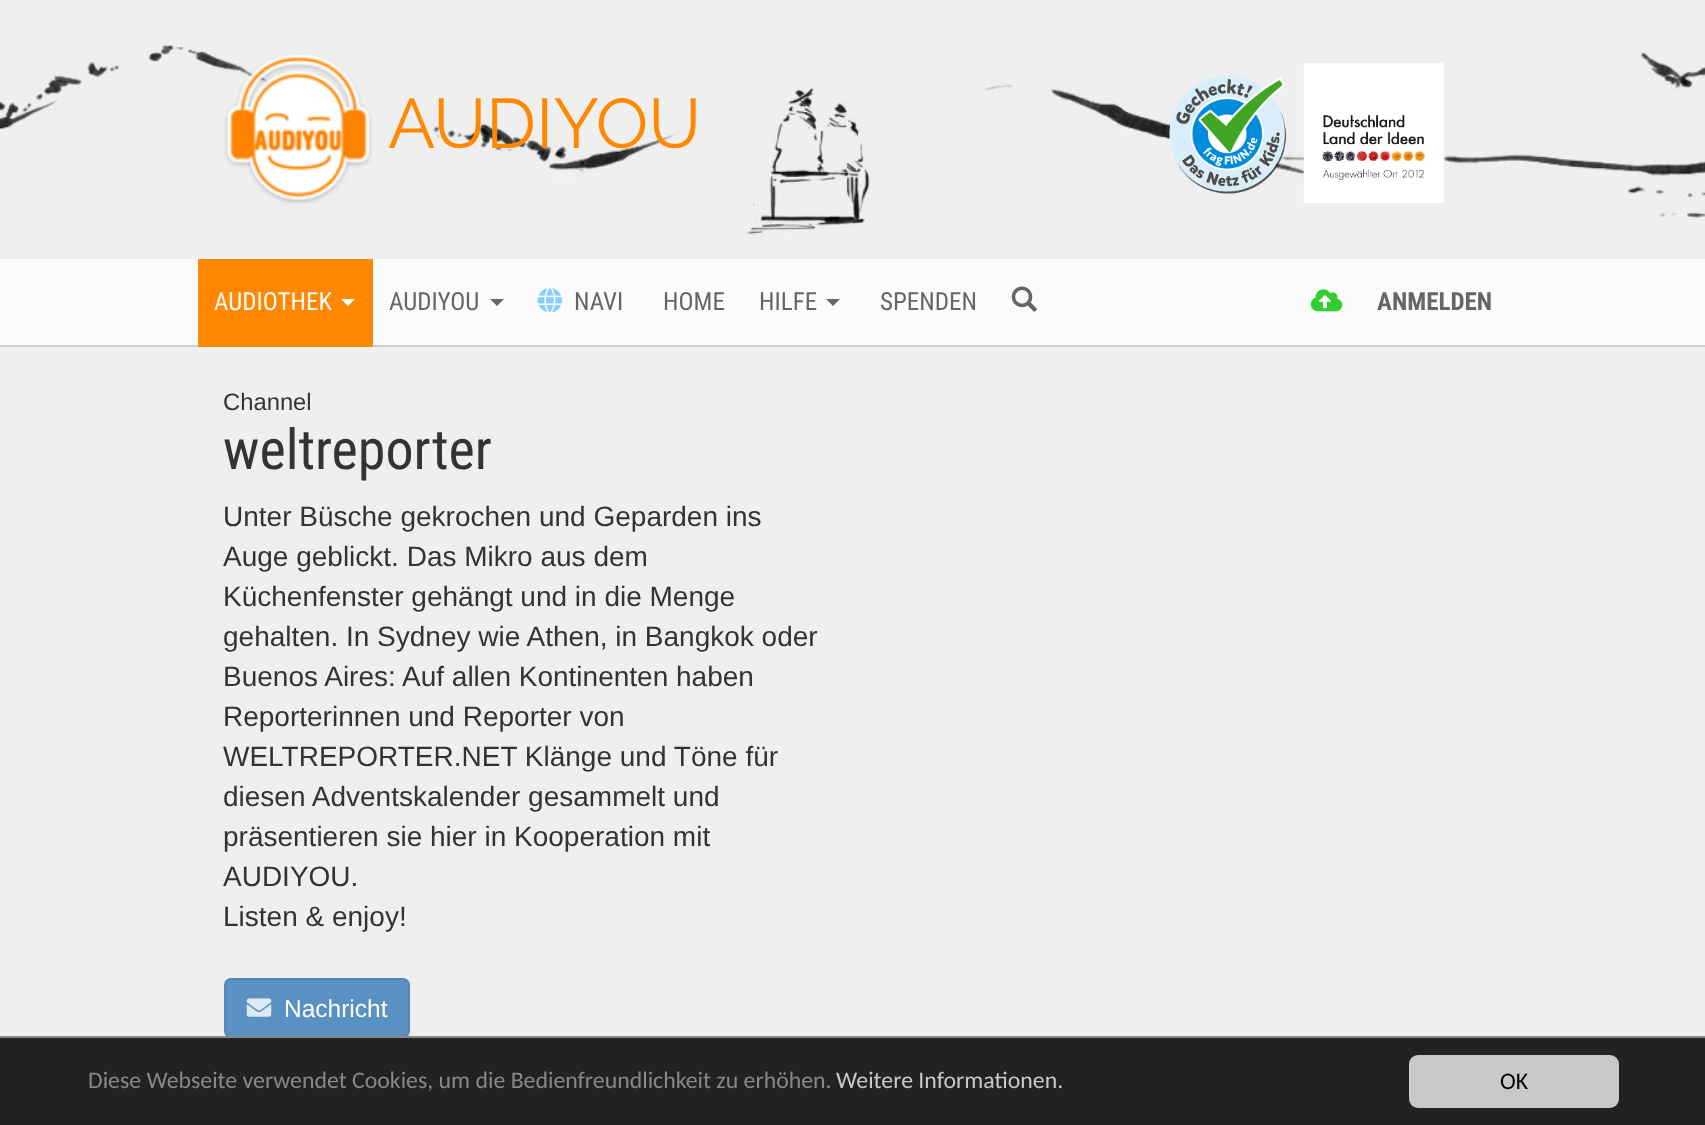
<svg xmlns="http://www.w3.org/2000/svg" width="1705" height="1125" viewBox="0 0 1705 1125">
  <rect width="100%" height="100%" fill="#efefef"/>
  <image x="0" y="41" width="1705" height="194" href="img/1.png"/>
  <image x="224" y="53" width="148" height="151" href="img/2.png"/>
  <image x="1169" y="76" width="118" height="118" href="img/3.png"/>
  <image x="1303" y="63" width="141" height="140" href="img/4.png"/>
  <path d="M0 259h1705v86H0z" fill="#fbfbfb"/>
  <path d="M0 345h1705v2H0z" fill="#cecece"/>
  <path d="M198 259h175v88H198z" fill="#f80"/>
  <path d="M341 299H355L348 306Z" fill="#fff"/>
  <path d="M490 299H504L497 306Z" fill="#666"/>
  <image x="537" y="288" width="26" height="25" href="img/5.png"/>
  <path d="M826 299H840L833 306Z" fill="#666"/>
  <image x="1011" y="286" width="26" height="26" href="img/6.png"/>
  <image x="1310" y="289" width="33" height="23" href="img/7.png"/>
  <rect x="225" y="979" width="184" height="58" rx="6" fill="#5991c2" stroke="#5587b3" stroke-width="2"/>
  <image x="246" y="998" width="26" height="19" href="img/8.png"/>
  <path d="M0 1038h1705v87H0z" fill="#222"/>
  <path d="M0 1036h1705v2H0z" fill="#888"/>
  <rect x="1409" y="1055" width="210" height="53" rx="9" fill="#c8c8c8"/>
  <text x="388" y="148" font-family="Raleway" font-size="70" font-weight="100" fill="#f80">AUDIYOU</text>
  <text x="214" y="310" font-family="Roboto Condensed" font-size="25" fill="#fcfcfc">AUDIOTHEK</text>
  <g font-family="Roboto Condensed" font-size="25" fill="#666">
    <text x="389" y="310">AUDIYOU</text>
    <text x="574" y="310">NAVI</text>
    <text x="663" y="310">HOME</text>
    <text x="759" y="310">HILFE</text>
    <text x="880" y="310">SPENDEN</text>
  </g>
  <text x="1377" y="310" font-family="Roboto Condensed" font-size="25" font-weight="bold" fill="#666">ANMELDEN</text>
  <text x="223" y="410" font-family="Liberation Sans" font-size="23.8" fill="#333">Channel</text>
  <text x="223" y="469" font-family="Roboto Condensed" font-size="56" fill="#333">weltreporter</text>
  <g font-family="Liberation Sans" font-size="28" fill="#333">
    <text x="223" y="526">Unter Büsche gekrochen und Geparden ins</text>
    <text x="223" y="566">Auge geblickt. Das Mikro aus dem</text>
    <text x="223" y="606">Küchenfenster gehängt und in die Menge</text>
    <text x="223" y="646">gehalten. In Sydney wie Athen, in Bangkok oder</text>
    <text x="223" y="686">Buenos Aires: Auf allen Kontinenten haben</text>
    <text x="223" y="726">Reporterinnen und Reporter von</text>
    <text x="223" y="766">WELTREPORTER.NET Klänge und Töne für</text>
    <text x="223" y="806">diesen Adventskalender gesammelt und</text>
    <text x="223" y="846">präsentieren sie hier in Kooperation mit</text>
    <text x="223" y="886">AUDIYOU.</text>
    <text x="223" y="926">Listen &amp; enjoy!</text>
  </g>
  <text x="284" y="1017" font-family="Liberation Sans" font-size="24.5" fill="#fcfcfc">Nachricht</text>
  <text x="88" y="1088" font-family="Carlito" font-size="23.8" fill="#888">Diese Webseite verwendet Cookies, um die Bedienfreundlichkeit zu erhöhen.</text>
  <text x="836" y="1088" font-family="Carlito" font-size="23.8" fill="#c8c8c8">Weitere Informationen.</text>
  <text x="1500" y="1089" font-family="Carlito" font-size="23.8" fill="#000">OK</text>
</svg>
